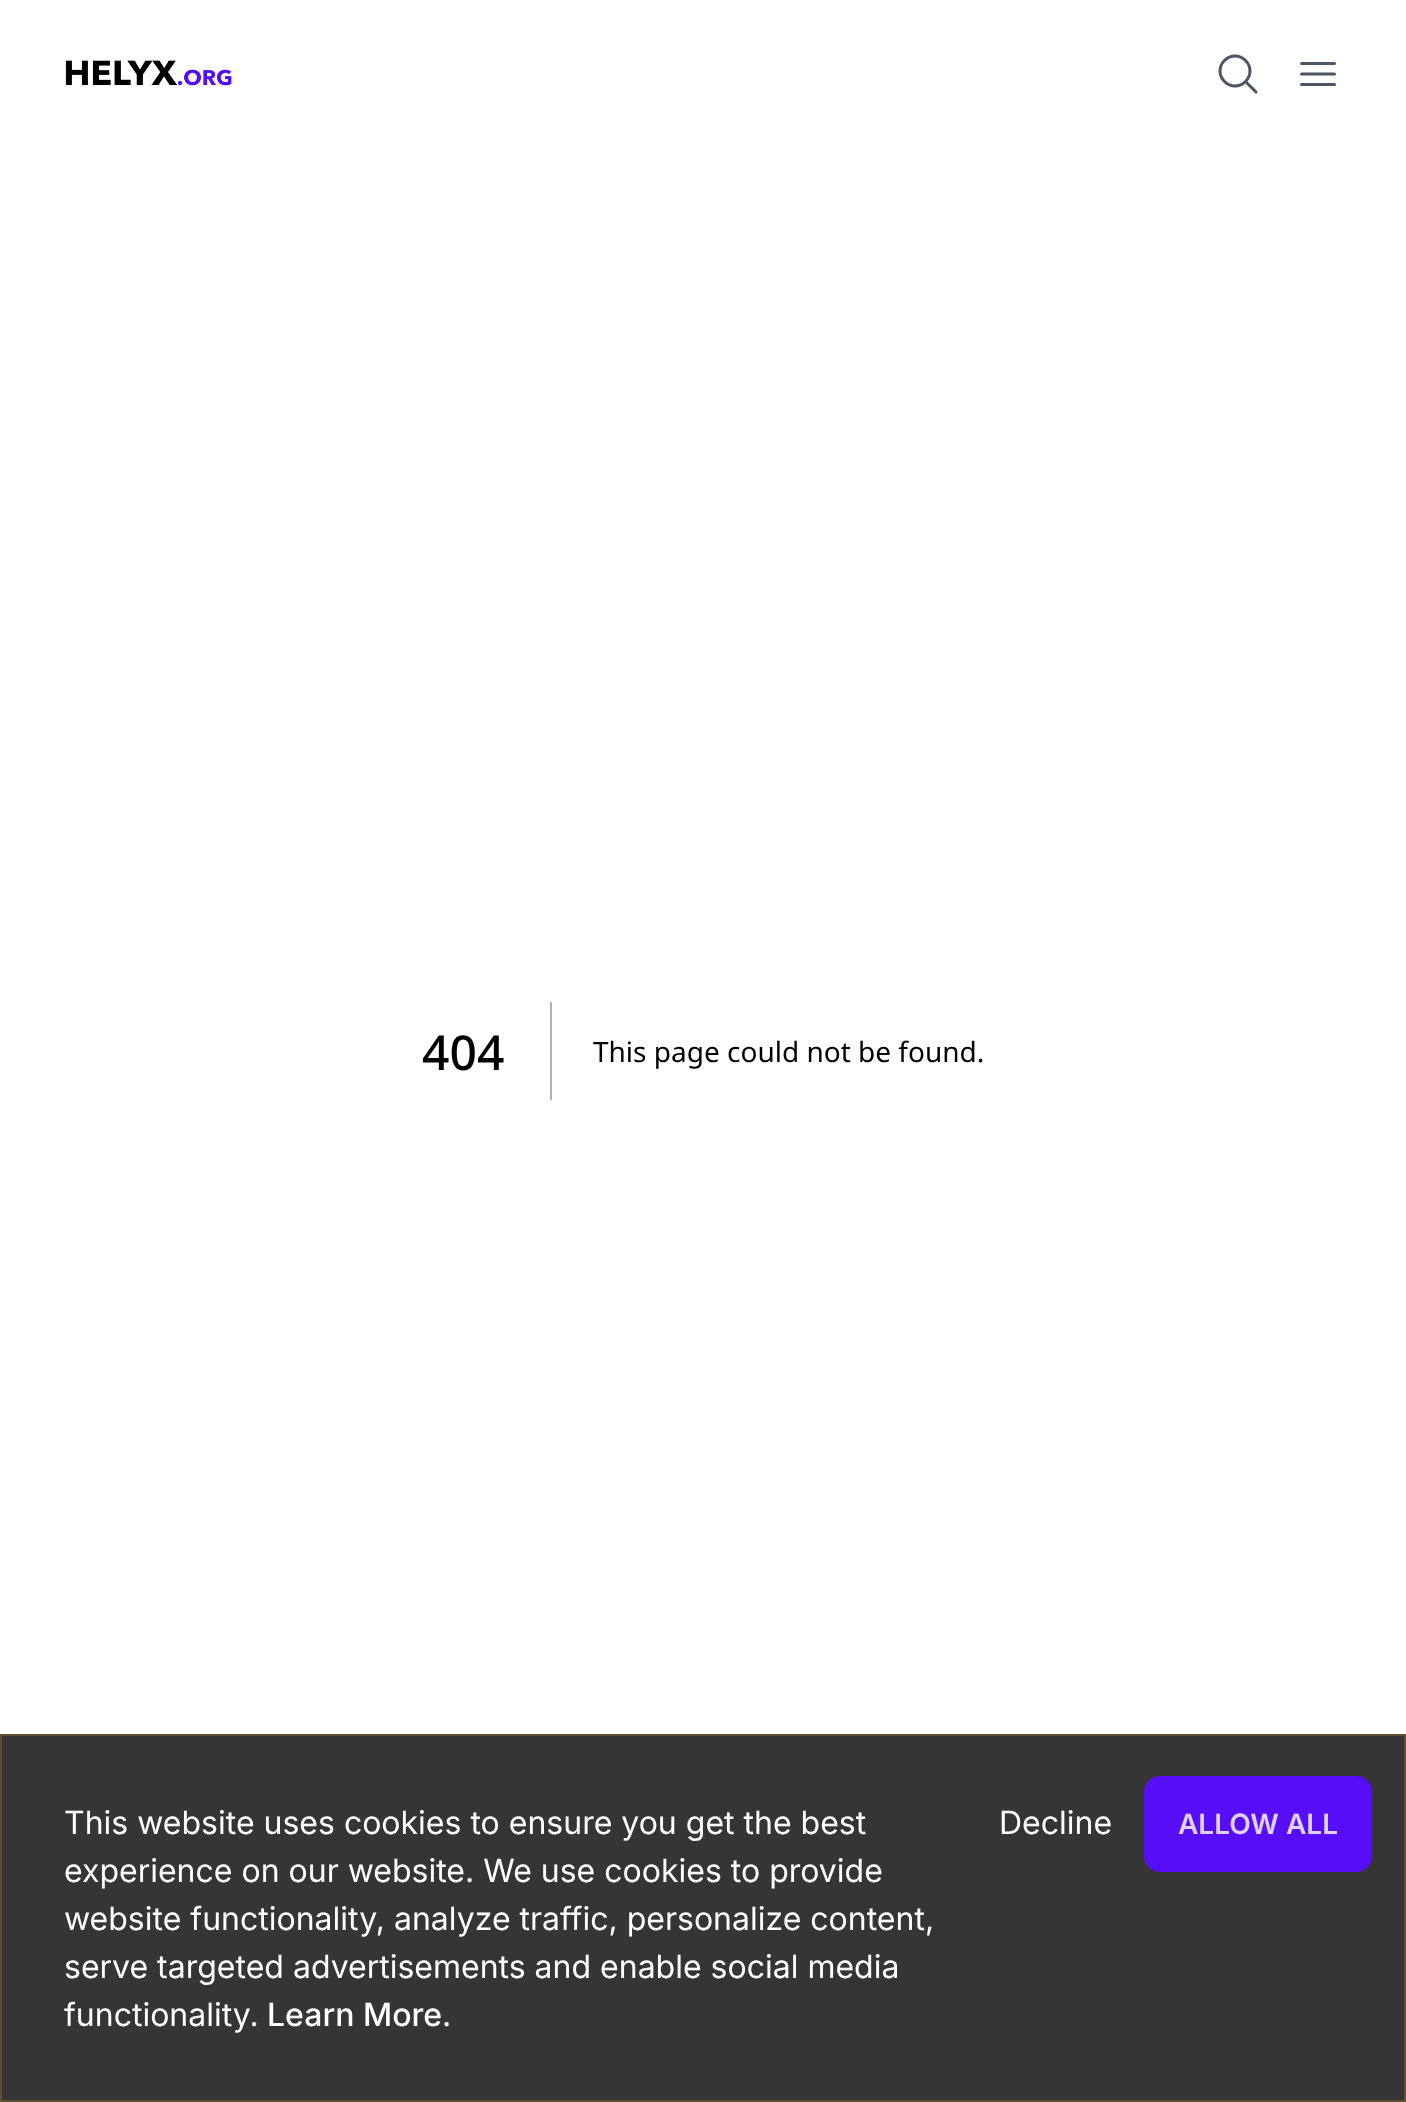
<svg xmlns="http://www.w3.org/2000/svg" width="1406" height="2102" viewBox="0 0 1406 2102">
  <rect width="100%" height="100%" fill="#fff"/>
  <image x="65" y="60" width="167" height="26" href="img/1.png"/>
  <path d="M1256 92L1245.5 81.5M1245.5 81.5C1251.5 75.5 1251.5 66.5 1245.5 60.5C1239.5 54.5 1230.5 54.5 1224.5 60.5C1218.5 66.5 1218.5 75.5 1224.5 81.5C1230.5 87.5 1239.5 87.5 1245.5 81.5Z" fill="none" stroke="#4b5563" stroke-width="3" stroke-linecap="round" stroke-linejoin="round"/>
  <path d="M1301.5 63.5H1334.5M1301.5 74H1334.5M1301.5 84.5H1334.5" fill="none" stroke="#4b5563" stroke-width="3" stroke-linecap="round" stroke-linejoin="round"/>
  <path d="M550 1002h2v98H550z" fill="#b3b3b3"/>
  <path d="M1 1735h1404v366H1z" fill="#353535" stroke="#5d5031" stroke-width="2"/>
  <rect x="1145" y="1777" width="226" height="94" rx="15" fill="#570df8" stroke="#570df8" stroke-width="2"/>
  <text x="422" y="1070" font-family="Noto Sans" font-size="48" font-weight="500" fill="#000">404</text>
  <text x="593" y="1062" font-family="Noto Sans" font-size="28" fill="#000">This page could not be found.</text>
  <g font-family="Inter" font-size="32" fill="#fff">
    <text x="64" y="1834">This website uses cookies to ensure you get the best</text>
    <text x="64" y="1882">experience on our website. We use cookies to provide</text>
    <text x="64" y="1930">website functionality, analyze traffic, personalize content,</text>
    <text x="64" y="1978">serve targeted advertisements and enable social media</text>
    <text x="64" y="2026">functionality.</text>
  </g>
  <text x="267" y="2026" font-family="Inter" font-size="32" font-weight="500" fill="#fff">Learn More</text>
  <g font-family="Inter" font-size="32" fill="#fff">
    <text x="442" y="2026">.</text>
    <text x="999" y="1834">Decline</text>
  </g>
  <text x="1178" y="1834" font-family="Inter" font-size="28" font-weight="600" fill="#e0d2fe">ALLOW ALL</text>
</svg>
